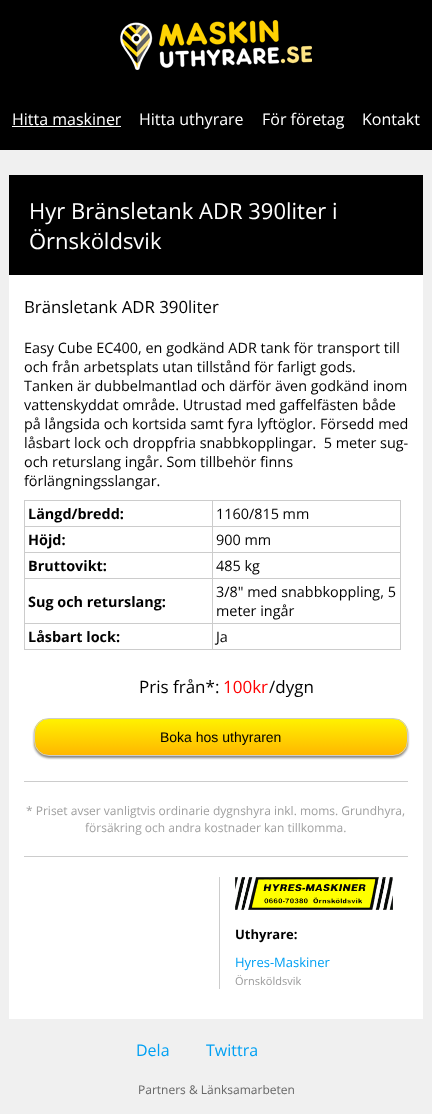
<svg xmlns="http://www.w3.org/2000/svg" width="432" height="1114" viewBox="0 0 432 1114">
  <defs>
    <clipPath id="clip1"><rect x="34" y="718" width="374" height="38" rx="15"/></clipPath>
    <linearGradient id="g1" gradientUnits="userSpaceOnUse" x1="221" y1="719" x2="221" y2="755"><stop offset="0" stop-color="#fff200"/><stop offset="1" stop-color="#ffb700"/></linearGradient>
  </defs>
  <rect width="100%" height="100%" fill="#f0f0f0"/>
  <path d="M0 0h432v150H0z" fill="#000"/>
  <image x="120" y="20" width="192" height="50" href="img/1.png"/>
  <path d="M12 126h109v1H12z" fill="#fff"/>
  <path d="M9 275h414v744H9z" fill="#fff"/>
  <path d="M9 175h414v100H9z" fill="#000"/>
  <path d="M24 500h377v1H24z" fill="#ccc"/>
  <path d="M400 500h1v150H400z" fill="#ccc"/>
  <path d="M24 649h377v1H24z" fill="#ccc"/>
  <path d="M24 500h1v150H24z" fill="#ccc"/>
  <path d="M212 526h189v1H212z" fill="#ccc"/>
  <path d="M212 552h189v1H212z" fill="#ccc"/>
  <path d="M212 578h189v1H212z" fill="#ccc"/>
  <path d="M212 623h189v1H212z" fill="#ccc"/>
  <path d="M212 623h1v27H212z" fill="#ccc"/>
  <path d="M24 623h189v1H24z" fill="#ccc"/>
  <path d="M212 578h1v46H212z" fill="#ccc"/>
  <path d="M24 578h189v1H24z" fill="#ccc"/>
  <path d="M212 552h1v27H212z" fill="#ccc"/>
  <path d="M24 552h189v1H24z" fill="#ccc"/>
  <path d="M212 526h1v27H212z" fill="#ccc"/>
  <path d="M24 526h189v1H24z" fill="#ccc"/>
  <path d="M212 500h1v27H212z" fill="#ccc"/>
  <rect x="34" y="720" width="374" height="38" rx="15" fill="#858585" filter="blur(1px)"/>
  <g clip-path="url(#clip1)">
    <path d="M34 719h374v36H34z" fill="url(#g1)"/>
  </g>
  <rect x="34.5" y="718.5" width="373" height="37" rx="14.5" fill="none" stroke="#ccc"/>
  <path d="M24 781h384v1H24z" fill="#ccc"/>
  <path d="M24 856h384v1H24z" fill="#ccc"/>
  <path d="M219 877h1v112H219z" fill="#ccc"/>
  <image x="235" y="877" width="158" height="33" href="img/2.png"/>
  <g font-family="Open Sans" font-size="16" fill="#fff">
    <text x="12" y="125">Hitta maskiner</text>
    <text x="139" y="125">Hitta uthyrare</text>
    <text x="262" y="125">För företag</text>
    <text x="362" y="125">Kontakt</text>
  </g>
  <g font-family="Open Sans" font-size="22" fill="#fff">
    <text x="29" y="219">Hyr Bränsletank ADR 390liter i</text>
    <text x="29" y="249">Örnsköldsvik</text>
  </g>
  <text x="24" y="313" font-family="Open Sans" font-size="16.8" fill="#000">Bränsletank ADR 390liter</text>
  <g font-family="Open Sans" font-size="14.4" fill="#000">
    <text x="24" y="353">Easy Cube EC400, en godkänd ADR tank för transport till</text>
    <text x="24" y="372">och från arbetsplats utan tillstånd för farligt gods.</text>
    <text x="24" y="391">Tanken är dubbelmantlad och därför även godkänd inom</text>
    <text x="24" y="410">vattenskyddat område. Utrustad med gaffelfästen både</text>
    <text x="24" y="429">på långsida och kortsida samt fyra lyftöglor. Försedd med</text>
    <text x="24" y="448" xml:space="preserve">låsbart lock och droppfria snabbkopplingar.  5 meter sug-</text>
    <text x="24" y="467">och returslang ingår. Som tillbehör finns</text>
    <text x="24" y="486">förlängningsslangar.</text>
  </g>
  <text x="28" y="519" font-family="Open Sans" font-size="14.4" font-weight="bold" fill="#000">Längd/bredd:</text>
  <text x="216" y="519" font-family="Open Sans" font-size="14.4" fill="#000">1160/815 mm</text>
  <text x="28" y="545" font-family="Open Sans" font-size="14.4" font-weight="bold" fill="#000">Höjd:</text>
  <text x="216" y="545" font-family="Open Sans" font-size="14.4" fill="#000">900 mm</text>
  <text x="28" y="571" font-family="Open Sans" font-size="14.4" font-weight="bold" fill="#000">Bruttovikt:</text>
  <text x="216" y="571" font-family="Open Sans" font-size="14.4" fill="#000">485 kg</text>
  <text x="28" y="607" font-family="Open Sans" font-size="14.4" font-weight="bold" fill="#000">Sug och returslang:</text>
  <g font-family="Open Sans" font-size="14.4" fill="#000">
    <text x="216" y="597">3/8" med snabbkoppling, 5</text>
    <text x="216" y="616">meter ingår</text>
  </g>
  <text x="28" y="642" font-family="Open Sans" font-size="14.4" font-weight="bold" fill="#000">Låsbart lock:</text>
  <text x="216" y="642" font-family="Open Sans" font-size="14.4" fill="#000">Ja</text>
  <text x="139" y="693" font-family="Open Sans" font-size="17" fill="#000">Pris från*:</text>
  <text x="223" y="693" font-family="Open Sans" font-size="17" fill="#f00">100kr</text>
  <text x="269" y="693" font-family="Open Sans" font-size="17" fill="#000">/dygn</text>
  <text x="160" y="742" font-family="Liberation Sans" font-size="14" fill="#000">Boka hos uthyraren</text>
  <g font-family="Open Sans" font-size="12" fill="#a0a0a0">
    <text x="26" y="815">* Priset avser vanligtvis ordinarie dygnshyra inkl. moms. Grundhyra,</text>
    <text x="85" y="832">försäkring och andra kostnader kan tillkomma.</text>
  </g>
  <text x="235" y="939" font-family="Open Sans" font-size="13" font-weight="bold" fill="#000">Uthyrare:</text>
  <text x="235" y="967" font-family="Open Sans" font-size="13" fill="#00a0f3">Hyres-Maskiner</text>
  <text x="235" y="985" font-family="Open Sans" font-size="11" fill="#999">Örnsköldsvik</text>
  <g font-family="Open Sans" font-size="16" fill="#00a0f3">
    <text x="136" y="1056">Dela</text>
    <text x="206" y="1056">Twittra</text>
  </g>
  <text x="138" y="1094" font-family="Open Sans" font-size="12" fill="#666">Partners &amp; Länksamarbeten</text>
</svg>
